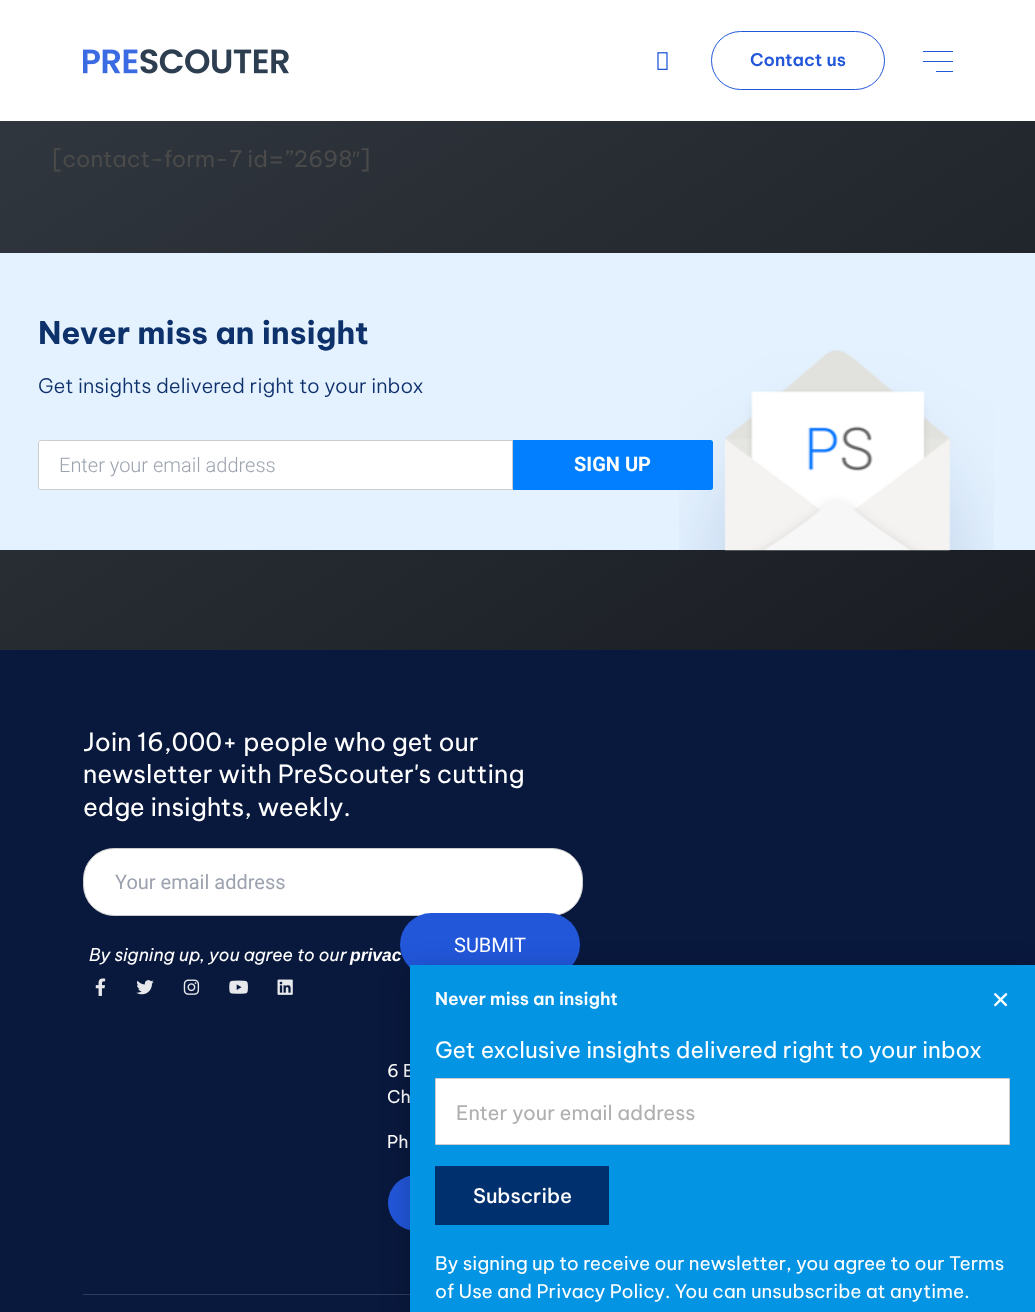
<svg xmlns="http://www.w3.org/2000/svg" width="1035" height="1312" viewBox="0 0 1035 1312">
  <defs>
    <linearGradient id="g1" gradientUnits="userSpaceOnUse" x1="64" y1="-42" x2="971" y2="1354"><stop offset="0" stop-color="#333941"/><stop offset="1" stop-color="#0c0f13"/></linearGradient>
  </defs>
  <rect width="100%" height="100%" fill="#fff"/>
  <path d="M0 121h1035v529H0z" fill="url(#g1)"/>
  <image x="83" y="49" width="206" height="25" href="img/1.png"/>
  <image x="657" y="52" width="11" height="18" href="img/2.png"/>
  <rect x="711.5" y="31.5" width="173" height="58" rx="29" fill="none" stroke="#2257da"/>
  <path d="M923 51h30v1H923z" fill="#2257da"/>
  <path d="M923 61h30v1H923z" fill="#2257da"/>
  <path d="M936 71h17v1H936z" fill="#2257da"/>
  <path d="M0 253h1035v297H0z" fill="#e4f1fe"/>
  <image x="679" y="350" width="315" height="201" href="img/3.png"/>
  <path d="M40.5 440.5H512.5V489.5H40.5C39.5 489.5 38.5 488.5 38.5 487.5V442.5C38.5 441.5 39.5 440.5 40.5 440.5Z" fill="#fff" stroke="#ccc"/>
  <path d="M513 440H710.5C712 440 713 441 713 442.5V487.5C713 489 712 490 710.5 490H513Z" fill="#027fff"/>
  <path d="M0 650h1035v662H0z" fill="#09183d"/>
  <rect x="83.5" y="848.5" width="499" height="67" rx="30.5" fill="#fff" stroke="#ccc"/>
  <image x="95" y="978" width="11" height="18" href="img/4.png"/>
  <image x="136" y="980" width="18" height="15" href="img/5.png"/>
  <image x="183" y="979" width="17" height="16" href="img/6.png"/>
  <image x="229" y="980" width="19" height="14" href="img/7.png"/>
  <image x="277" y="979" width="16" height="16" href="img/8.png"/>
  <rect x="388" y="1175" width="165" height="56" rx="28" fill="#2257da"/>
  <path d="M83 1294h327v1H83z" fill="#2e3b5a"/>
  <text x="750" y="66" font-family="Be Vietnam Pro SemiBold" font-size="17.5" font-weight="600" fill="#2257da">Contact us</text>
  <text x="52" y="167" font-family="Be Vietnam Pro" font-size="22.5" fill="#4a4a4a">[contact-form-7 id=”2698</text>
  <text x="352" y="167" font-family="Liberation Sans" font-size="22.5" fill="#4a4a4a">″</text>
  <text x="360" y="167" font-family="Be Vietnam Pro" font-size="22.5" fill="#4a4a4a">]</text>
  <text x="38" y="344" font-family="Be Vietnam Pro" font-size="31.25" font-weight="bold" fill="#0d316a">Never miss an insight</text>
  <text x="38" y="393" font-family="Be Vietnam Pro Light" font-size="20" font-weight="300" fill="#0d316a">Get insights delivered right to your inbox</text>
  <text x="59" y="472" font-family="Roboto" font-size="20" font-weight="300" fill="#9ca3af">Enter your email address</text>
  <text x="574" y="471" font-family="Roboto" font-size="20" font-weight="bold" fill="#fff">SIGN UP</text>
  <g font-family="Be Vietnam Pro" font-size="25" fill="#fff">
    <text x="83" y="751">Join 16,000+ people who get our</text>
    <text x="83" y="783">newsletter with PreScouter's cutting</text>
    <text x="83" y="816">edge insights, weekly.</text>
  </g>
  <text x="115" y="889" font-family="Roboto" font-size="20" fill="#9ca3af">Your email address</text>
  <text x="89" y="961" font-family="Be Vietnam Pro" font-size="17.5" font-style="italic" fill="#fff">By signing up, you agree to our</text>
  <text x="350" y="961" font-family="Liberation Sans" font-size="17.5" font-weight="bold" font-style="italic" fill="#fff">privac</text>
  <rect x="400" y="913" width="180" height="63" rx="31.5" fill="#2257da"/>
  <text x="454" y="952" font-family="Roboto" font-size="20" fill="#fff">SUBMIT</text>
  <g font-family="Be Vietnam Pro" font-size="17.5" fill="#fff">
    <text x="387" y="1077">6 E</text>
    <text x="387" y="1103">Ch</text>
    <text x="387" y="1148">Ph</text>
  </g>
  <path d="M409 971h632v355H409z" fill="#00000033" filter="blur(14.5px)"/>
  <path d="M410 965h625v347H410z" fill="#0394e4"/>
  <text x="435" y="1005" font-family="Be Vietnam Pro SemiBold" font-size="17.5" font-weight="600" fill="#fff">Never miss an insight</text>
  <text x="435" y="1058" font-family="Be Vietnam Pro" font-size="22.5" fill="#fff">Get exclusive insights delivered right to your inbox</text>
  <path d="M435.5 1078.5h574v66H435.5z" fill="#fff" stroke="#ccc"/>
  <text x="456" y="1120" font-family="Be Vietnam Pro" font-size="20" fill="#afafaf">Enter your email address</text>
  <path d="M435 1166h174v59H435z" fill="#00306e"/>
  <text x="473" y="1203" font-family="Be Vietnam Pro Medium" font-size="20" font-weight="500" fill="#fff">Subscribe</text>
  <g font-family="Be Vietnam Pro" font-size="18.75" fill="#fff">
    <text x="435" y="1270">By signing up to receive our newsletter, you agree to our Terms</text>
    <text x="435" y="1298">of Use and Privacy Policy. You can unsubscribe at anytime.</text>
  </g>
  <image x="994" y="993" width="14" height="14" href="img/9.png"/>
</svg>
